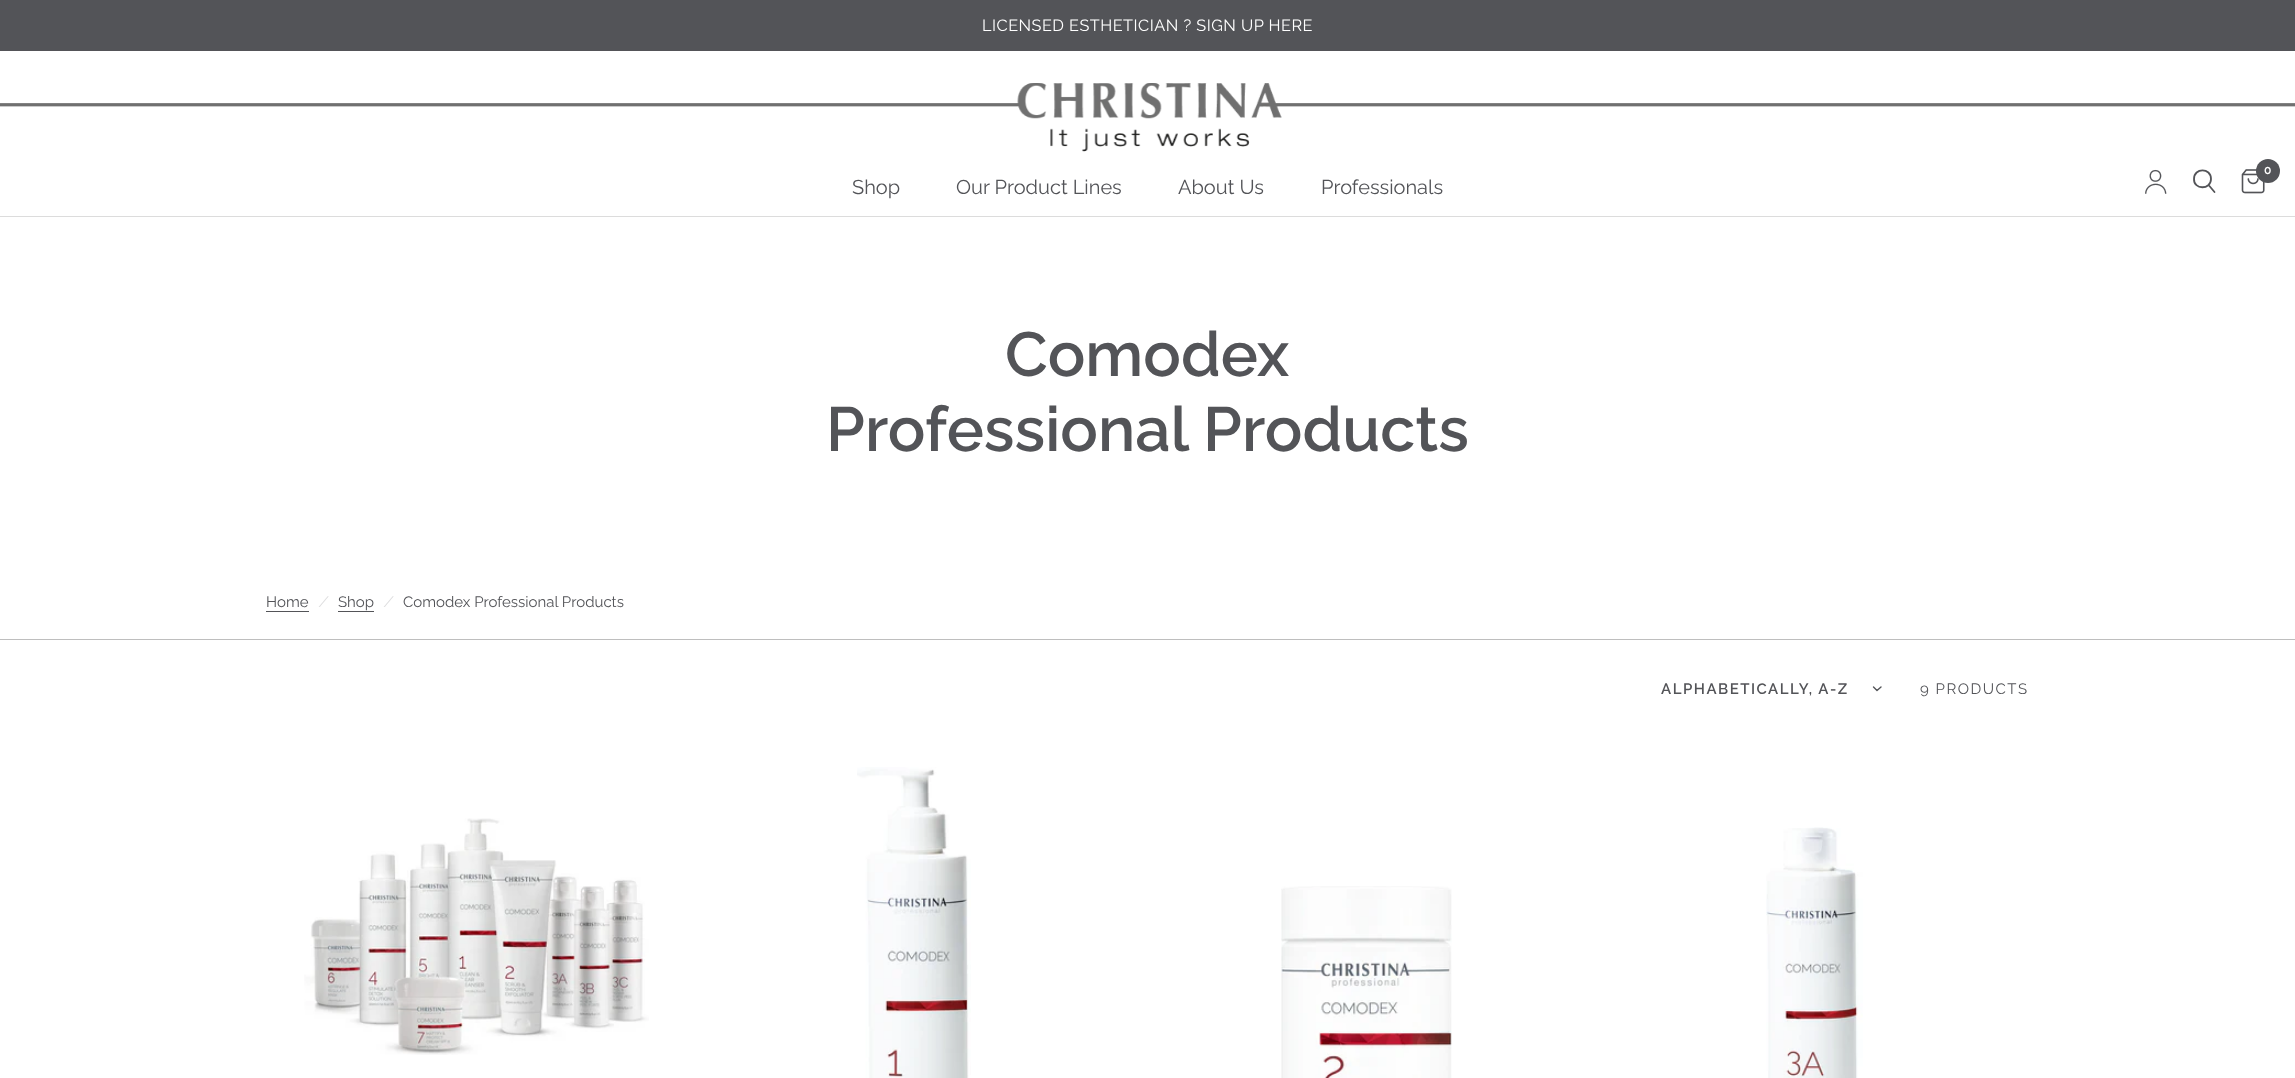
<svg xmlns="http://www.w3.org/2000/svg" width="2295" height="1078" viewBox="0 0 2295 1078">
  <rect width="100%" height="100%" fill="#fff"/>
  <path d="M0 0h2295v51H0z" fill="#535458"/>
  <path d="M0 216h2295v1H0z" fill="#dcdcdc"/>
  <image x="0" y="83" width="2295" height="69" href="img/1.png"/>
  <image x="2145" y="169" width="22" height="25" href="img/2.png"/>
  <path d="M2209 185.5L2214.5 192M2211 179C2211 190 2193.5 190 2194 179C2194 167.5 2211 167.5 2211 179Z" fill="none" stroke="#535458" stroke-width="1.8" stroke-linecap="round" stroke-linejoin="round"/>
  <image x="2241" y="169" width="24" height="25" href="img/3.png"/>
  <circle cx="2268" cy="171" r="12" fill="#535458"/>
  <path d="M0 639h2295v1H0z" fill="#bebebe"/>
  <path d="M266 611h43v1H266z" fill="#535458"/>
  <path d="M338 611h36v1H338z" fill="#535458"/>
  <path d="M1881 687L1877 690.5L1873.5 687" fill="none" stroke="#535458" stroke-width="1.4" stroke-linecap="round" stroke-linejoin="round"/>
  <image x="304" y="818" width="345" height="237" href="img/4.png"/>
  <image x="857" y="767" width="114" height="311" href="img/5.png"/>
  <image x="1281" y="886" width="171" height="192" href="img/6.png"/>
  <image x="1766" y="827" width="97" height="251" href="img/7.png"/>
  <text x="982" y="31" font-family="Raleway" font-size="16.25" font-weight="100" letter-spacing="0.5" fill="#fff">LICENSED ESTHETICIAN ? SIGN UP HERE</text>
  <text x="2264" y="174" font-family="Raleway" font-size="12" font-weight="600" fill="#fff">0</text>
  <g font-family="Raleway" font-size="20" font-weight="100" fill="#535458">
    <text x="852" y="194">Shop</text>
    <text x="956" y="194">Our Product Lines</text>
    <text x="1178" y="194">About Us</text>
    <text x="1321" y="194">Professionals</text>
  </g>
  <g font-family="Raleway" font-size="62.5" font-weight="600" fill="#535458">
    <text x="1005" y="376">Comodex</text>
    <text x="826" y="451">Professional Products</text>
  </g>
  <text x="266" y="607" font-family="Raleway" font-size="15" font-weight="100" fill="#535458">Home</text>
  <text x="319" y="607" font-family="Raleway" font-size="15" font-style="italic" fill="#ddddde">/</text>
  <text x="338" y="607" font-family="Raleway" font-size="15" font-weight="100" fill="#535458">Shop</text>
  <text x="384" y="607" font-family="Raleway" font-size="15" font-style="italic" fill="#ddddde">/</text>
  <text x="403" y="607" font-family="Raleway" font-size="15" font-weight="100" fill="#535458">Comodex Professional Products</text>
  <text x="1661" y="694" font-family="Raleway" font-size="15" font-weight="600" letter-spacing="1.5" fill="#535458">ALPHABETICALLY, A-Z</text>
  <text x="1920" y="694" font-family="Raleway" font-size="15" font-weight="100" letter-spacing="1.5" fill="#535458">9 PRODUCTS</text>
</svg>
